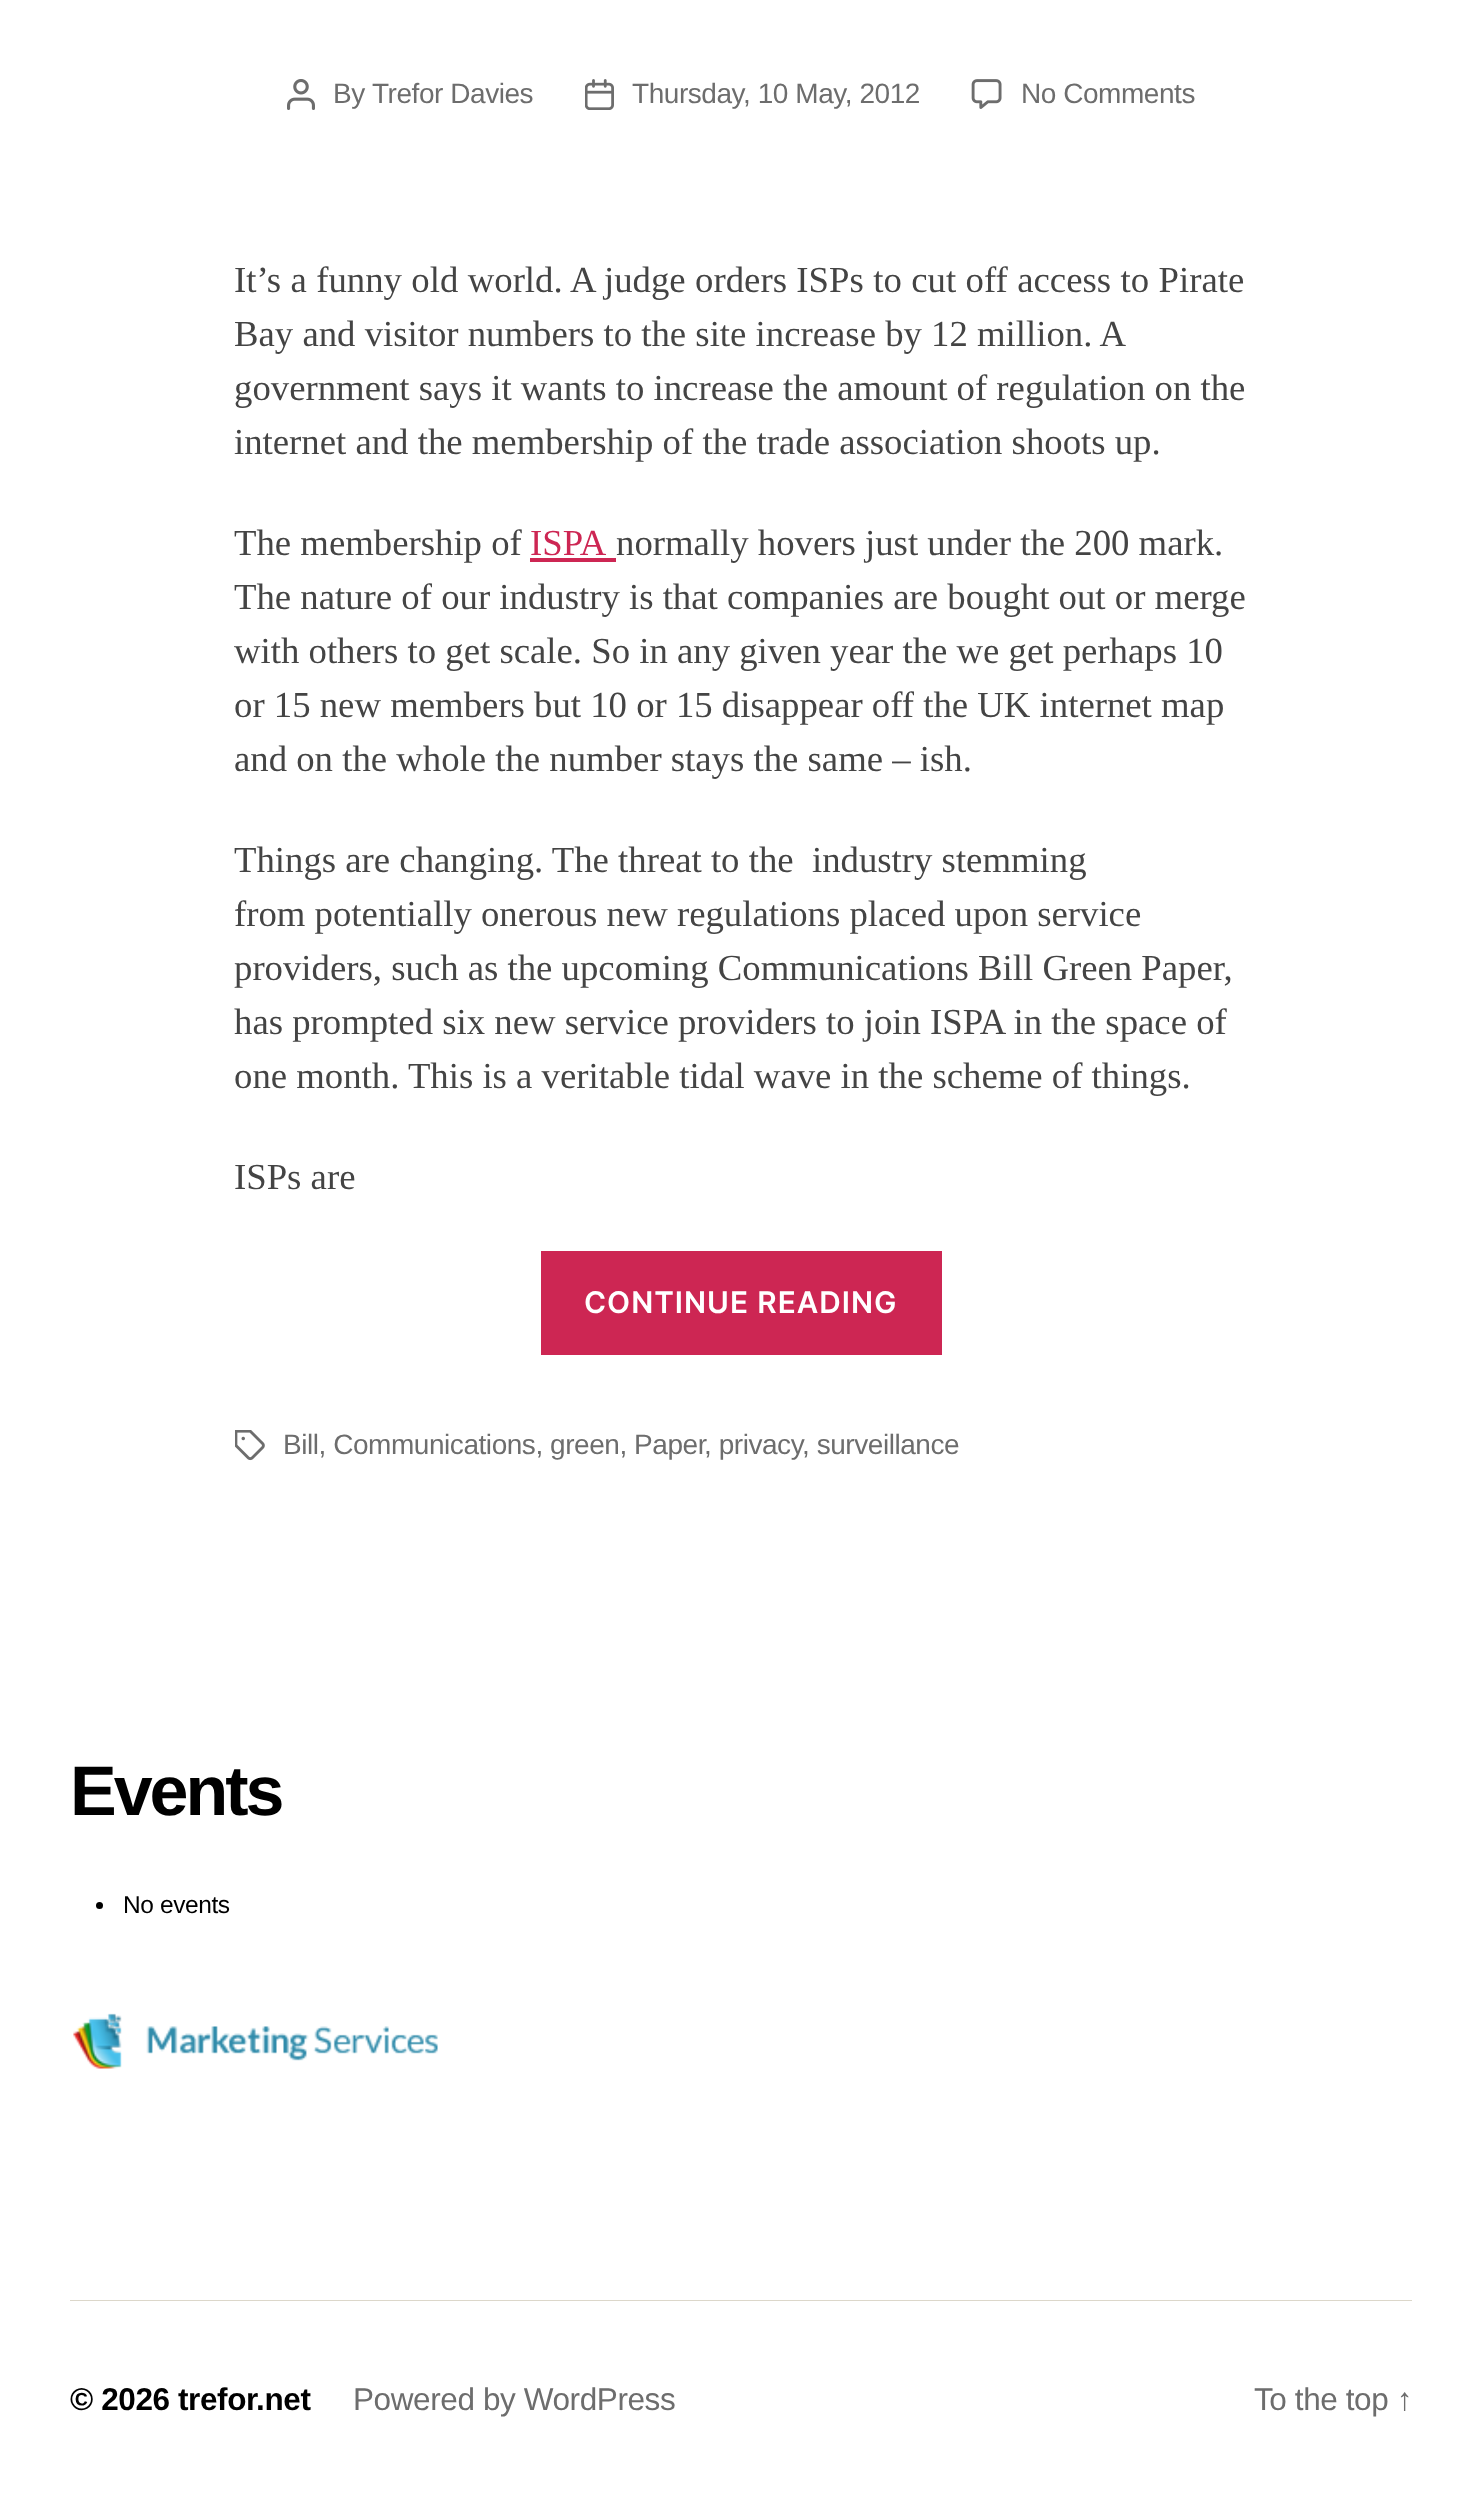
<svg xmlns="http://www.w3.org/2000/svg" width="1481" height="2499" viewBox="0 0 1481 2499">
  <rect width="100%" height="100%" fill="#fff"/>
  <image x="287" y="79" width="28" height="31" href="img/1.png"/>
  <image x="585" y="79" width="29" height="31" href="img/2.png"/>
  <image x="971" y="79" width="31" height="30" href="img/3.png"/>
  <path d="M530 558h86v4H530z" fill="#cd2653"/>
  <path d="M541 1251h401v104H541z" fill="#cd2653"/>
  <image x="235" y="1430" width="30" height="31" href="img/4.png"/>
  <path d="M70 2300h1342v1H70z" fill="#dcd7ca"/>
  <circle cx="99.5" cy="1905.5" r="3.5" fill="#000"/>
  <image x="73" y="2013" width="365" height="56" href="img/5.png"/>
  <g font-family="Liberation Sans" font-size="28" letter-spacing="-0.45" fill="#6d6d6d">
    <text x="333" y="103">By</text>
    <text x="372" y="103">Trefor Davies</text>
    <text x="632" y="103">Thursday, 10 May, 2012</text>
    <text x="1021" y="103">No Comments</text>
  </g>
  <g font-family="Liberation Serif" font-size="36.75" fill="#444">
    <text x="234" y="292" word-spacing="0.25">It’s a funny old world. A judge orders ISPs to cut off access to Pirate</text>
    <text x="234" y="346">Bay and visitor numbers to the site increase by 12 million. A</text>
    <text x="234" y="400">government says it wants to increase the amount of regulation on the</text>
    <text x="234" y="454">internet and the membership of the trade association shoots up.</text>
    <text x="234" y="555">The membership of</text>
  </g>
  <text x="530" y="555" font-family="Liberation Serif" font-size="36.75" fill="#cd2653">ISPA</text>
  <g font-family="Liberation Serif" font-size="36.75" fill="#444">
    <text x="616" y="555">normally hovers just under the 200 mark.</text>
    <text x="234" y="609">The nature of our industry is that companies are bought out or merge</text>
    <text x="234" y="663">with others to get scale. So in any given year the we get perhaps 10</text>
    <text x="234" y="717">or 15 new members but 10 or 15 disappear off the UK internet map</text>
    <text x="234" y="771">and on the whole the number stays the same – ish.</text>
    <text x="234" y="872" xml:space="preserve">Things are changing. The threat to the  industry stemming</text>
    <text x="234" y="926">from potentially onerous new regulations placed upon service</text>
    <text x="234" y="980">providers, such as the upcoming Communications Bill Green Paper,</text>
    <text x="234" y="1034">has prompted six new service providers to join ISPA in the space of</text>
    <text x="234" y="1088">one month. This is a veritable tidal wave in the scheme of things.</text>
    <text x="234" y="1189">ISPs are</text>
  </g>
  <text x="584" y="1313" font-family="Inter" font-size="29.75" font-weight="600" letter-spacing="1" fill="#fff">CONTINUE READING</text>
  <g font-family="Liberation Sans" font-size="28" letter-spacing="-0.45" fill="#6d6d6d">
    <text x="283" y="1454">Bill, Communications, green, Paper</text>
    <text x="704" y="1454">, privacy</text>
    <text x="802" y="1454">, surveillance</text>
  </g>
  <text x="70" y="1815" font-family="Liberation Sans" font-size="70" font-weight="bold" letter-spacing="-3" fill="#000">Events</text>
  <text x="123" y="1913" font-family="Liberation Sans" font-size="24.5" letter-spacing="-0.4" fill="#000">No events</text>
  <text x="70" y="2410" font-family="Liberation Sans" font-size="31.5" font-weight="bold" letter-spacing="-0.4" fill="#000">© 2026 trefor.net</text>
  <g font-family="Liberation Sans" font-size="31.5" letter-spacing="-0.4" fill="#6d6d6d">
    <text x="353" y="2410">Powered by WordPress</text>
    <text x="1254" y="2410">To the top ↑</text>
  </g>
</svg>
